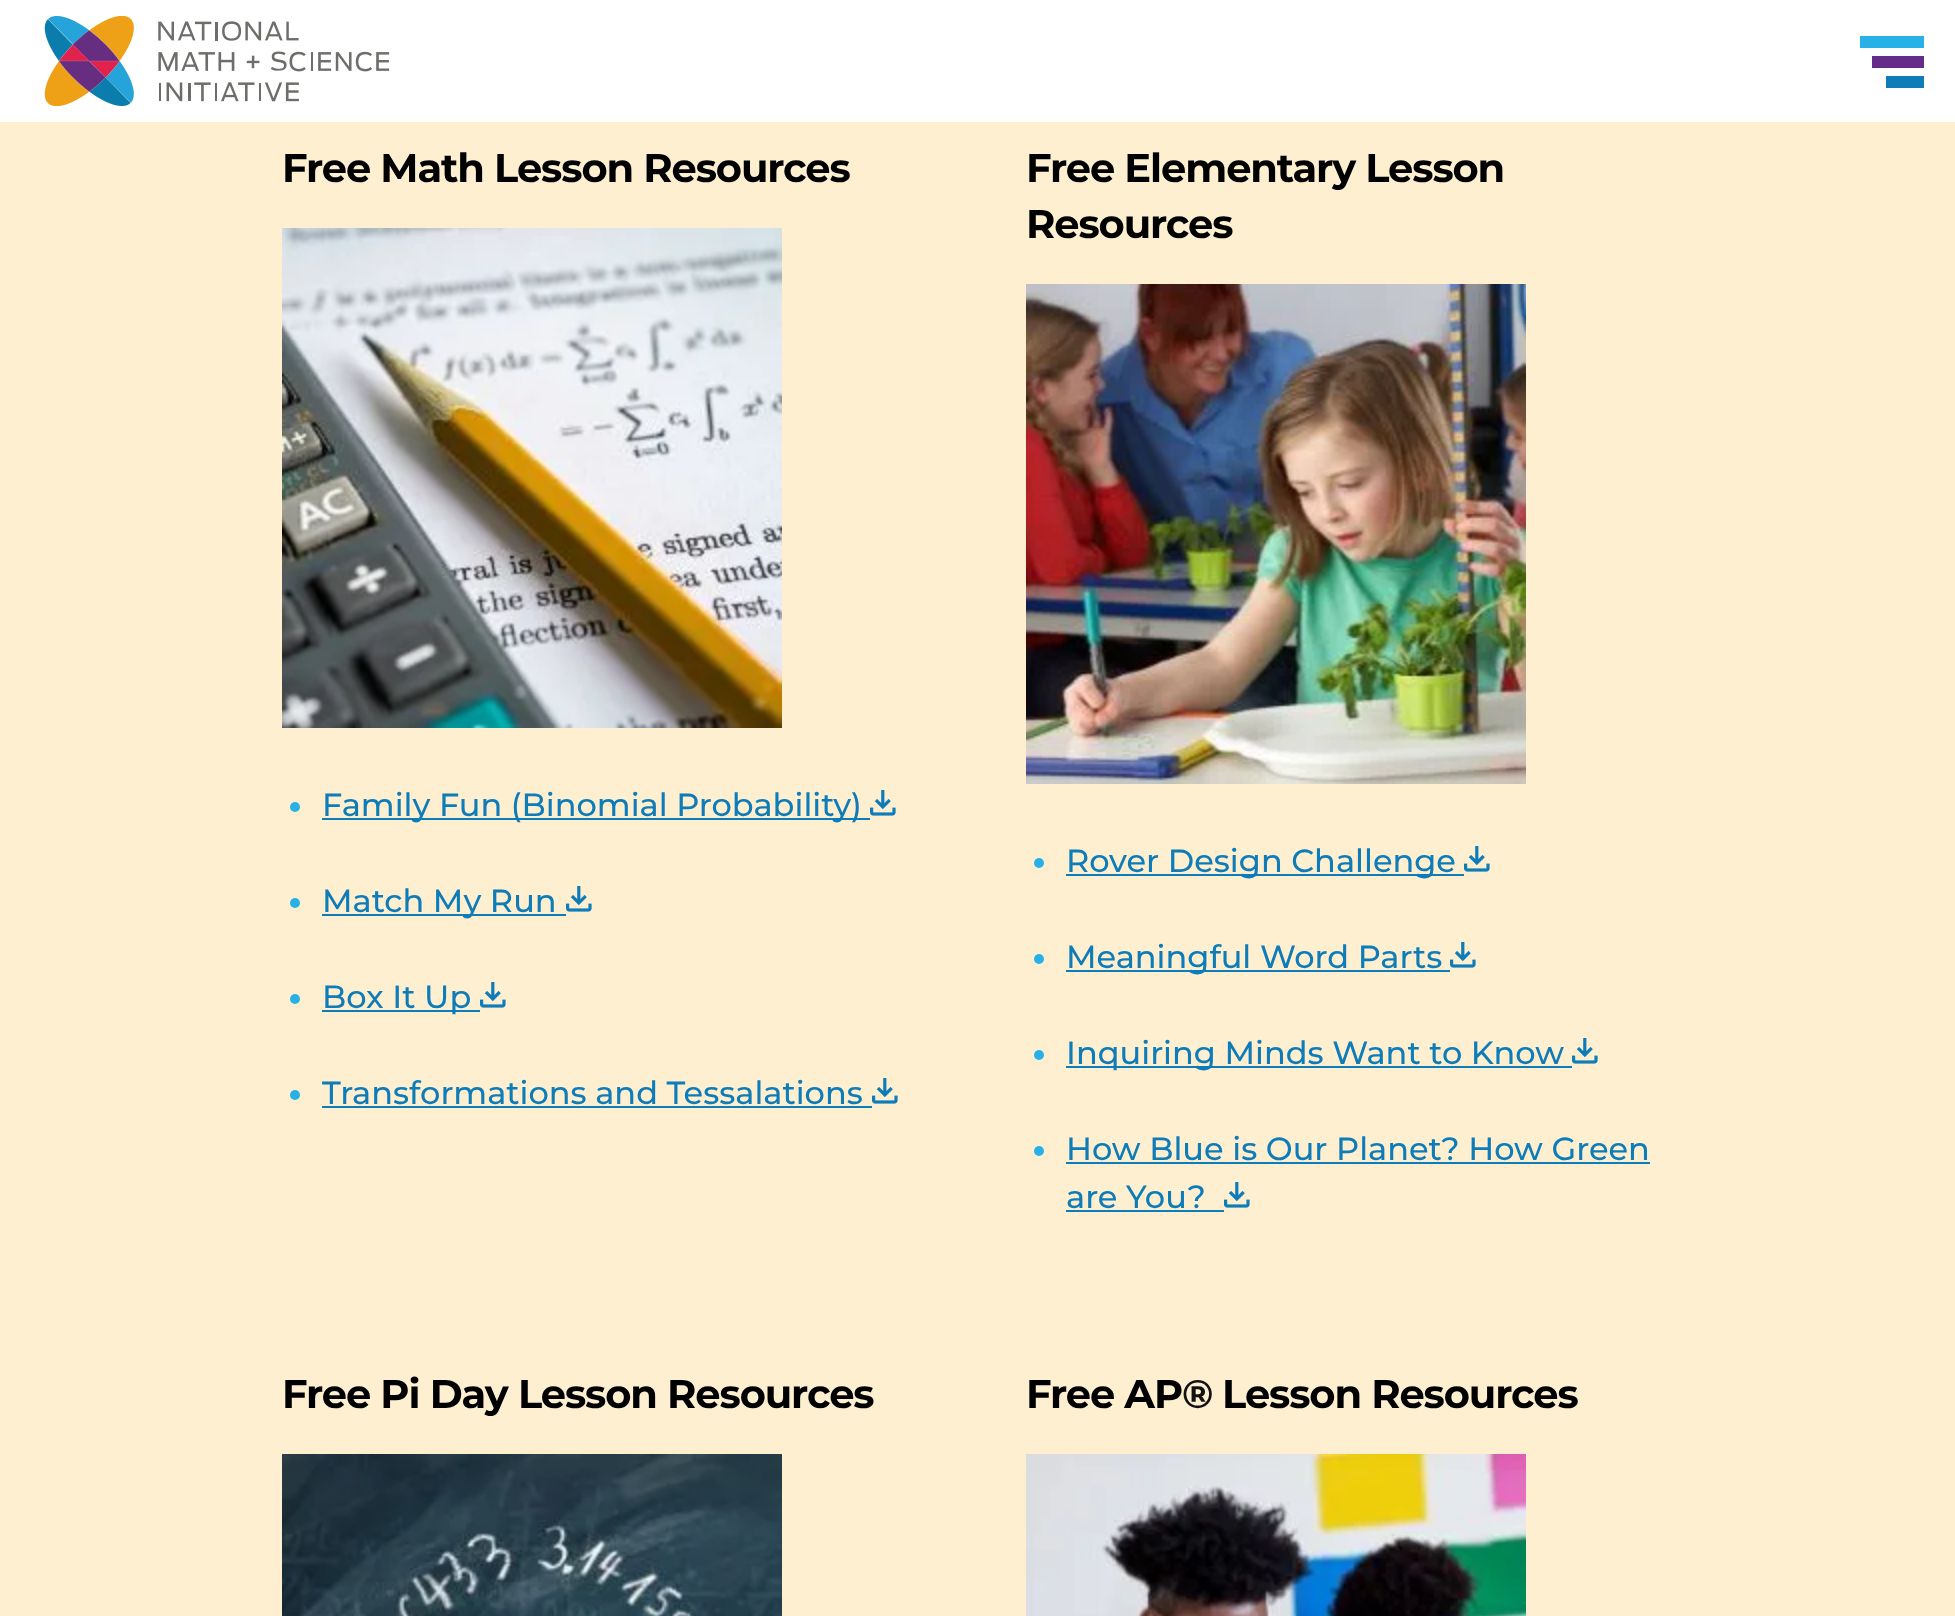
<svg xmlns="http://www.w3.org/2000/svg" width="1955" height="1616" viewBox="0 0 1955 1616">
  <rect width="100%" height="100%" fill="#feefd1"/>
  <path d="M0 0h1955v122H0z" fill="#fff"/>
  <image x="44" y="16" width="346" height="90" href="img/1.png"/>
  <path d="M1860 36h64v12H1860z" fill="#28b1e6"/>
  <path d="M1872 56h52v12H1872z" fill="#662c89"/>
  <path d="M1886 76h38v12H1886z" fill="#0d7cb9"/>
  <image x="282" y="228" width="500" height="500" href="img/2.png"/>
  <circle cx="295" cy="807" r="5" fill="#28b1e6"/>
  <path d="M322 818h548v2H322z" fill="#0d7cb9"/>
  <image x="870" y="790" width="26" height="26" href="img/3.png"/>
  <circle cx="295" cy="903" r="5" fill="#28b1e6"/>
  <path d="M322 914h244v2H322z" fill="#0d7cb9"/>
  <image x="566" y="886" width="26" height="26" href="img/3.png"/>
  <circle cx="295" cy="999" r="5" fill="#28b1e6"/>
  <path d="M322 1010h158v2H322z" fill="#0d7cb9"/>
  <image x="480" y="982" width="26" height="26" href="img/3.png"/>
  <circle cx="295" cy="1095" r="5" fill="#28b1e6"/>
  <path d="M322 1106h550v2H322z" fill="#0d7cb9"/>
  <image x="872" y="1078" width="26" height="26" href="img/3.png"/>
  <image x="1026" y="284" width="500" height="500" href="img/4.png"/>
  <circle cx="1039" cy="863" r="5" fill="#28b1e6"/>
  <path d="M1066 874h398v2H1066z" fill="#0d7cb9"/>
  <image x="1464" y="846" width="26" height="26" href="img/3.png"/>
  <circle cx="1039" cy="959" r="5" fill="#28b1e6"/>
  <path d="M1066 970h384v2H1066z" fill="#0d7cb9"/>
  <image x="1450" y="942" width="26" height="26" href="img/3.png"/>
  <circle cx="1039" cy="1055" r="5" fill="#28b1e6"/>
  <path d="M1066 1066h506v2H1066z" fill="#0d7cb9"/>
  <image x="1572" y="1038" width="26" height="26" href="img/3.png"/>
  <circle cx="1039" cy="1151" r="5" fill="#28b1e6"/>
  <path d="M1066 1162h584v2H1066z" fill="#0d7cb9"/>
  <path d="M1066 1210h158v2H1066z" fill="#0d7cb9"/>
  <image x="1224" y="1182" width="26" height="26" href="img/3.png"/>
  <image x="282" y="1454" width="500" height="162" href="img/5.png"/>
  <image x="1026" y="1454" width="500" height="162" href="img/6.png"/>
  <text x="282" y="182" font-family="Montserrat" font-size="40" font-weight="bold" letter-spacing="-1.1" fill="#000">Free Math Lesson Resources</text>
  <g font-family="Montserrat" font-size="32" font-weight="500" fill="#0d7cb9">
    <text x="322" y="816">Family Fun (Binomial Probability)</text>
    <text x="322" y="912">Match My Run</text>
    <text x="322" y="1008">Box It Up</text>
    <text x="322" y="1104">Transformations and Tessalations</text>
  </g>
  <g font-family="Montserrat" font-size="40" font-weight="bold" letter-spacing="-1.1" fill="#000">
    <text x="1026" y="182">Free Elementary Lesson</text>
    <text x="1026" y="238">Resources</text>
  </g>
  <g font-family="Montserrat" font-size="32" font-weight="500" fill="#0d7cb9">
    <text x="1066" y="872">Rover Design Challenge</text>
    <text x="1066" y="968">Meaningful Word Parts</text>
    <text x="1066" y="1064">Inquiring Minds Want to Know</text>
    <text x="1066" y="1160">How Blue is Our Planet? How Green</text>
    <text x="1066" y="1208">are You?</text>
  </g>
  <g font-family="Montserrat" font-size="40" font-weight="bold" letter-spacing="-1.1" fill="#000">
    <text x="282" y="1408">Free Pi Day Lesson Resources</text>
    <text x="1026" y="1408">Free AP</text>
  </g>
  <text x="1182" y="1408" font-family="Montserrat" font-size="40" font-weight="bold" letter-spacing="-1.1" fill="#111">®</text>
  <text x="1222" y="1408" font-family="Montserrat" font-size="40" font-weight="bold" letter-spacing="-1.1" fill="#000">Lesson Resources</text>
</svg>
